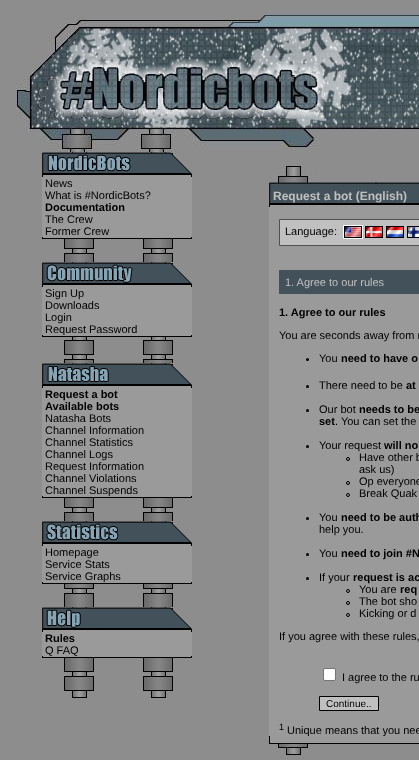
<svg xmlns="http://www.w3.org/2000/svg" width="419" height="760" viewBox="0 0 419 760">
  <rect width="100%" height="100%" fill="#8d8d8d"/>
  <image x="16" y="11" width="403" height="141" href="img/1.png"/>
  <image x="42" y="152" width="150" height="25" href="img/2.png"/>
  <path d="M42 177h150v60H42z" fill="#9a9a9a"/>
  <image x="42" y="237" width="150" height="2" href="img/3.png"/>
  <image x="64" y="239" width="109" height="23" href="img/4.png"/>
  <image x="42" y="262" width="150" height="25" href="img/5.png"/>
  <path d="M42 287h150v48H42z" fill="#9a9a9a"/>
  <image x="64" y="337" width="109" height="26" href="img/6.png"/>
  <image x="42" y="363" width="150" height="25" href="img/7.png"/>
  <path d="M42 388h150v108H42z" fill="#9a9a9a"/>
  <image x="64" y="498" width="109" height="23" href="img/4.png"/>
  <image x="42" y="521" width="150" height="25" href="img/8.png"/>
  <path d="M42 546h150v36H42z" fill="#9a9a9a"/>
  <image x="64" y="584" width="109" height="23" href="img/9.png"/>
  <image x="42" y="607" width="150" height="25" href="img/10.png"/>
  <path d="M42 632h150v24H42z" fill="#9a9a9a"/>
  <image x="64" y="658" width="109" height="40" href="img/11.png"/>
  <image x="266" y="164" width="153" height="43" href="img/12.png"/>
  <path d="M269 207h150v529H269z" fill="#9a9a9a"/>
  <path d="M279.5 219.5h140v26H279.5z" fill="#c0c0c0" stroke="#505050"/>
  <path d="M343.5 225.5h19v13H343.5z" fill="none" stroke="#fff"/>
  <image x="344" y="226" width="18" height="12" href="img/13.png"/>
  <image x="365" y="226" width="18" height="12" href="img/14.png"/>
  <image x="386" y="226" width="18" height="12" href="img/15.png"/>
  <image x="407" y="226" width="12" height="12" href="img/16.png"/>
  <path d="M279 270h140v24H279z" fill="#43515a"/>
  <circle cx="307.5" cy="359.5" r="1.5" fill="#000"/>
  <circle cx="307.5" cy="386.5" r="1.5" fill="#000"/>
  <circle cx="307.5" cy="410.5" r="1.5" fill="#000"/>
  <circle cx="307.5" cy="446.5" r="1.5" fill="#000"/>
  <circle cx="348" cy="459" r="1.5" fill="none" stroke="#000"/>
  <circle cx="348" cy="483" r="1.5" fill="none" stroke="#000"/>
  <circle cx="348" cy="495" r="1.5" fill="none" stroke="#000"/>
  <circle cx="307.5" cy="518.5" r="1.5" fill="#000"/>
  <circle cx="307.5" cy="554.5" r="1.5" fill="#000"/>
  <circle cx="307.5" cy="578.5" r="1.5" fill="#000"/>
  <circle cx="348" cy="591" r="1.5" fill="none" stroke="#000"/>
  <circle cx="348" cy="603" r="1.5" fill="none" stroke="#000"/>
  <circle cx="348" cy="615" r="1.5" fill="none" stroke="#000"/>
  <rect x="323.5" y="668.5" width="12" height="12" rx="1.5" fill="#fff" stroke="#767676"/>
  <path d="M319.5 696.5h59v14H319.5z" fill="#c0c0c0" stroke="#000"/>
  <g font-family="Liberation Sans" font-size="11" fill="#000">
    <text x="45" y="187">News</text>
    <text x="45" y="199">What is #NordicBots?</text>
  </g>
  <text x="45" y="211" font-family="Liberation Sans" font-size="11" font-weight="bold" fill="#000">Documentation</text>
  <g font-family="Liberation Sans" font-size="11" fill="#000">
    <text x="45" y="223">The Crew</text>
    <text x="45" y="235">Former Crew</text>
    <text x="45" y="297">Sign Up</text>
    <text x="45" y="309">Downloads</text>
    <text x="45" y="321">Login</text>
    <text x="45" y="333">Request Password</text>
  </g>
  <image x="42" y="335" width="150" height="2" href="img/3.png"/>
  <g font-family="Liberation Sans" font-size="11" font-weight="bold" fill="#000">
    <text x="45" y="398">Request a bot</text>
    <text x="45" y="410">Available bots</text>
  </g>
  <g font-family="Liberation Sans" font-size="11" fill="#000">
    <text x="45" y="422">Natasha Bots</text>
    <text x="45" y="434">Channel Information</text>
    <text x="45" y="446">Channel Statistics</text>
    <text x="45" y="458">Channel Logs</text>
    <text x="45" y="470">Request Information</text>
    <text x="45" y="482">Channel Violations</text>
    <text x="45" y="494">Channel Suspends</text>
  </g>
  <image x="42" y="496" width="150" height="2" href="img/3.png"/>
  <g font-family="Liberation Sans" font-size="11" fill="#000">
    <text x="45" y="556">Homepage</text>
    <text x="45" y="568">Service Stats</text>
    <text x="45" y="580">Service Graphs</text>
  </g>
  <image x="42" y="582" width="150" height="2" href="img/3.png"/>
  <text x="45" y="642" font-family="Liberation Sans" font-size="11" font-weight="bold" fill="#000">Rules</text>
  <text x="45" y="654" font-family="Liberation Sans" font-size="11" fill="#000">Q FAQ</text>
  <image x="42" y="656" width="150" height="2" href="img/3.png"/>
  <text x="273" y="200" font-family="Liberation Sans" font-size="12" font-weight="bold" fill="#c0c0c0">Request a bot (English)</text>
  <text x="285" y="235" font-family="Liberation Sans" font-size="11" fill="#000">Language:</text>
  <text x="285" y="286" font-family="Liberation Sans" font-size="11" fill="#c0c0c0">1. Agree to our rules</text>
  <text x="279" y="316" font-family="Liberation Sans" font-size="11" font-weight="bold" fill="#000">1. Agree to our rules</text>
  <g font-family="Liberation Sans" font-size="11" fill="#000">
    <text x="279" y="339">You are seconds away from r</text>
    <text x="319" y="362">You</text>
  </g>
  <text x="341" y="362" font-family="Liberation Sans" font-size="11" font-weight="bold" fill="#000">need to have o</text>
  <text x="319" y="389" font-family="Liberation Sans" font-size="11" fill="#000">There need to be</text>
  <text x="406" y="389" font-family="Liberation Sans" font-size="11" font-weight="bold" fill="#000">at</text>
  <text x="319" y="413" font-family="Liberation Sans" font-size="11" fill="#000">Our bot</text>
  <g font-family="Liberation Sans" font-size="11" font-weight="bold" fill="#000">
    <text x="359" y="413">needs to be</text>
    <text x="319" y="425">set</text>
  </g>
  <g font-family="Liberation Sans" font-size="11" fill="#000">
    <text x="335" y="425">. You can set the</text>
    <text x="319" y="449">Your request</text>
  </g>
  <text x="384" y="449" font-family="Liberation Sans" font-size="11" font-weight="bold" fill="#000">will no</text>
  <g font-family="Liberation Sans" font-size="11" fill="#000">
    <text x="359" y="461">Have other b</text>
    <text x="359" y="473">ask us)</text>
    <text x="359" y="485">Op everyone</text>
    <text x="359" y="497">Break Quak</text>
    <text x="319" y="521">You</text>
  </g>
  <text x="341" y="521" font-family="Liberation Sans" font-size="11" font-weight="bold" fill="#000">need to be auth</text>
  <g font-family="Liberation Sans" font-size="11" fill="#000">
    <text x="319" y="533">help you.</text>
    <text x="319" y="557">You</text>
  </g>
  <text x="341" y="557" font-family="Liberation Sans" font-size="11" font-weight="bold" fill="#000">need to join #N</text>
  <text x="319" y="581" font-family="Liberation Sans" font-size="11" fill="#000">If your</text>
  <text x="353" y="581" font-family="Liberation Sans" font-size="11" font-weight="bold" fill="#000">request is ac</text>
  <text x="359" y="593" font-family="Liberation Sans" font-size="11" fill="#000">You are</text>
  <text x="400" y="593" font-family="Liberation Sans" font-size="11" font-weight="bold" fill="#000">req</text>
  <g font-family="Liberation Sans" font-size="11" fill="#000">
    <text x="359" y="605">The bot sho</text>
    <text x="359" y="617">Kicking or d</text>
    <text x="279" y="640">If you agree with these rules,</text>
    <text x="342" y="681">I agree to the ru</text>
  </g>
  <text x="326" y="707" font-family="Liberation Sans" font-size="10" fill="#000">Continue..</text>
  <text x="279" y="730" font-family="Liberation Sans" font-size="9" fill="#000">1</text>
  <text x="287" y="734" font-family="Liberation Sans" font-size="11" fill="#000">Unique means that you nee</text>
  <image x="266" y="736" width="153" height="20" href="img/17.png"/>
</svg>
